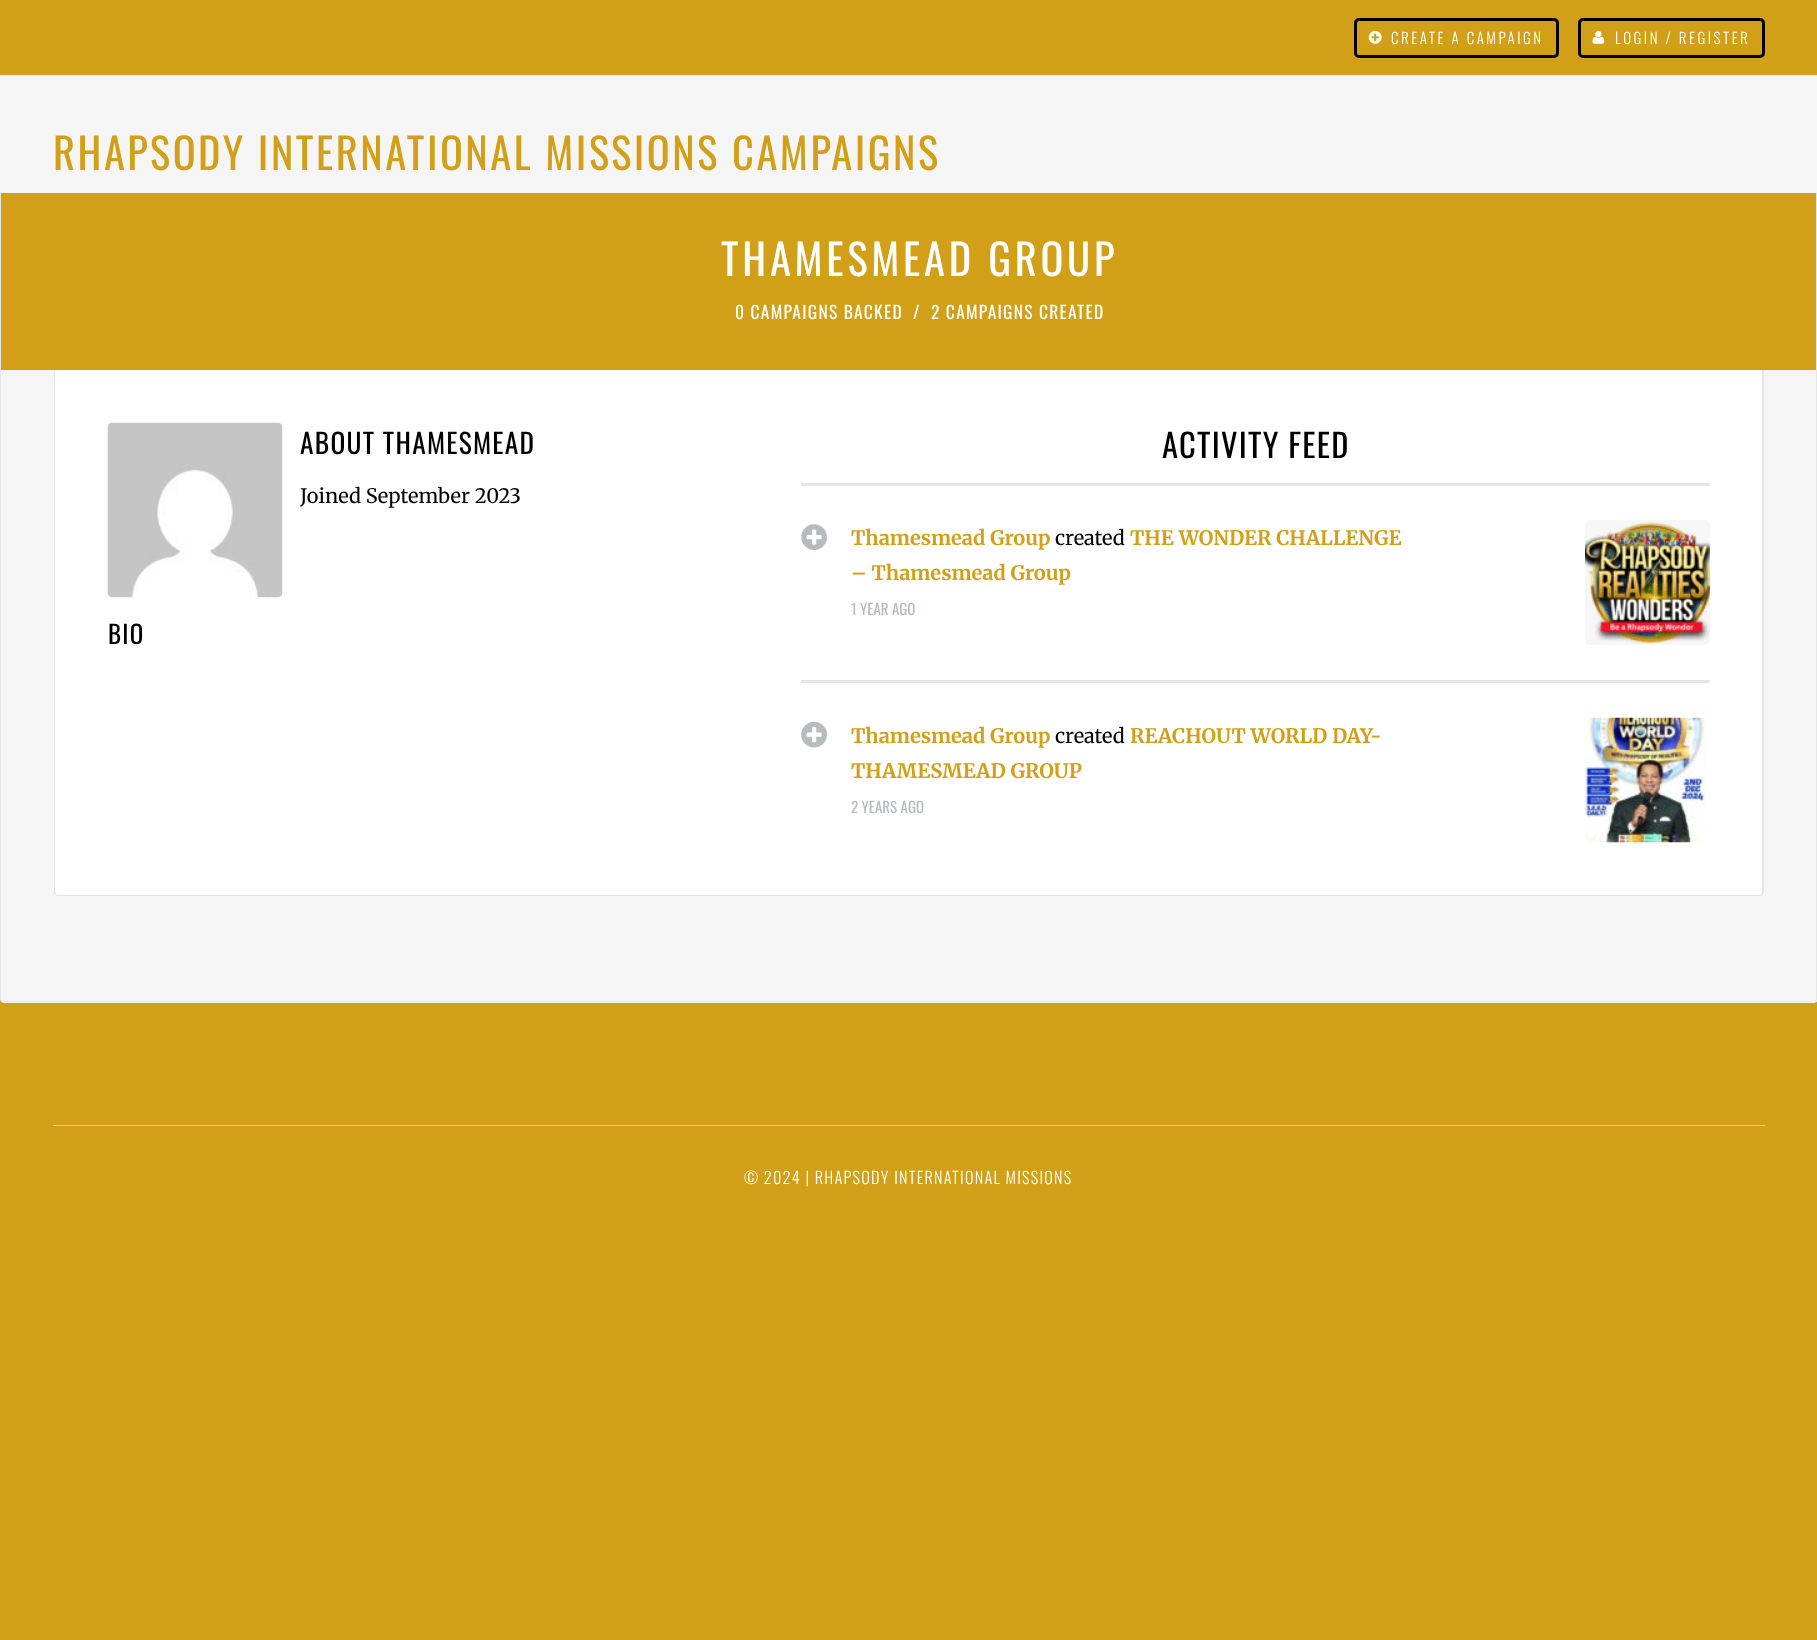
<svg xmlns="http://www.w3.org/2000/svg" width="1817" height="1640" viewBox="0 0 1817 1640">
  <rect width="100%" height="100%" fill="#d1a018"/>
  <rect x="1355.5" y="19.5" width="202" height="37" rx="3.5" fill="none" stroke="#000" stroke-width="3"/>
  <image x="1368" y="30" width="14" height="14" href="img/1.png"/>
  <rect x="1579.5" y="19.5" width="184" height="37" rx="3.5" fill="none" stroke="#000" stroke-width="3"/>
  <image x="1592" y="30" width="13" height="14" href="img/2.png"/>
  <rect y="193" width="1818" height="810" rx="5" fill="#fff" filter="blur(0.5px)"/>
  <path d="M0 193H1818V998C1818 1001 1816 1003 1813 1003H5C2 1003 0 1001 0 998Z" fill="#f5f5f6"/>
  <path d="M0 192H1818V998C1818 1000 1815 1002 1812 1002H5C2 1002 0 1000 0 998ZM1 192H1816V998C1816 1000 1815 1001 1812 1001H5C3 1001 1 1000 1 998Z" fill="#e3e5e6" fill-rule="evenodd"/>
  <path d="M0 75h1817v118H0z" fill="#f5f5f6"/>
  <path d="M1 193h1815v177H1z" fill="#d1a018"/>
  <rect x="54" y="370" width="1710" height="526" rx="5" fill="#fff" filter="blur(0.5px)"/>
  <path d="M54 370H1764V891C1764 894 1762 896 1759 896H59C56 896 54 894 54 891Z" fill="#fff"/>
  <path d="M54 370H1764V891C1764 894 1762 896 1759 896H59C56 896 54 894 54 891ZM55 370H1762V891C1762 893 1761 895 1759 895H59C57 895 55 893 55 891Z" fill="#e3e5e6" fill-rule="evenodd"/>
  <image x="107" y="422" width="176" height="176" href="img/3.png"/>
  <path d="M801 483h909v3H801z" fill="#e3e5e6"/>
  <path d="M801 680h909v3H801z" fill="#e3e5e6"/>
  <image x="801" y="524" width="26" height="26" href="img/4.png"/>
  <image x="1585" y="520" width="125" height="125" href="img/5.png"/>
  <image x="801" y="721" width="26" height="27" href="img/6.png"/>
  <image x="1585" y="717" width="121" height="126" href="img/7.png"/>
  <path d="M53 1125h1712v1H53z" fill="#e8d08c"/>
  <g font-family="Oswald" font-size="15" font-weight="300" letter-spacing="2.5" fill="#fff">
    <text x="1391" y="44">CREATE A CAMPAIGN</text>
    <text x="1615" y="44">LOGIN / REGISTER</text>
  </g>
  <text x="53" y="170" font-family="Oswald" font-size="42.5" letter-spacing="2.5" fill="#d1a018">RHAPSODY INTERNATIONAL MISSIONS CAMPAIGNS</text>
  <text x="721" y="276" font-family="Oswald" font-size="42.5" letter-spacing="3.75" fill="#fff">THAMESMEAD GROUP</text>
  <g font-family="Oswald" font-size="17.5" letter-spacing="1.25" fill="#fff">
    <text x="735" y="319">0 CAMPAIGNS BACKED</text>
    <text x="913" y="319">/</text>
    <text x="931" y="319">2 CAMPAIGNS CREATED</text>
  </g>
  <text x="300" y="454" font-family="Oswald" font-size="27.5" letter-spacing="1.25" fill="#000">ABOUT THAMESMEAD</text>
  <text x="300" y="503" font-family="Merriweather" font-size="20" fill="#000">Joined September 2023</text>
  <text x="108" y="644" font-family="Oswald" font-size="25" letter-spacing="1.25" fill="#000">BIO</text>
  <text x="1162" y="458" font-family="Oswald" font-size="32.5" letter-spacing="1.25" fill="#000">ACTIVITY FEED</text>
  <text x="851" y="545" font-family="Merriweather" font-size="20" font-weight="bold" fill="#d1a018">Thamesmead Group</text>
  <text x="1055" y="545" font-family="Merriweather" font-size="20" fill="#000">created</text>
  <g font-family="Merriweather" font-size="20" font-weight="bold" fill="#d1a018">
    <text x="1130" y="545">THE WONDER CHALLENGE</text>
    <text x="851" y="580">– Thamesmead Group</text>
  </g>
  <text x="851" y="615" font-family="Oswald" font-size="15" fill="#b6bbbd">1 YEAR AGO</text>
  <text x="851" y="743" font-family="Merriweather" font-size="20" font-weight="bold" fill="#d1a018">Thamesmead Group</text>
  <text x="1055" y="743" font-family="Merriweather" font-size="20" fill="#000">created</text>
  <g font-family="Merriweather" font-size="20" font-weight="bold" fill="#d1a018">
    <text x="1130" y="743">REACHOUT WORLD DAY-</text>
    <text x="851" y="778">THAMESMEAD GROUP</text>
  </g>
  <text x="851" y="813" font-family="Oswald" font-size="15" fill="#b6bbbd">2 YEARS AGO</text>
  <text x="744" y="1184" font-family="Oswald" font-size="16.25" font-weight="300" letter-spacing="1.25" fill="#fff">© 2024 | RHAPSODY INTERNATIONAL MISSIONS</text>
</svg>
